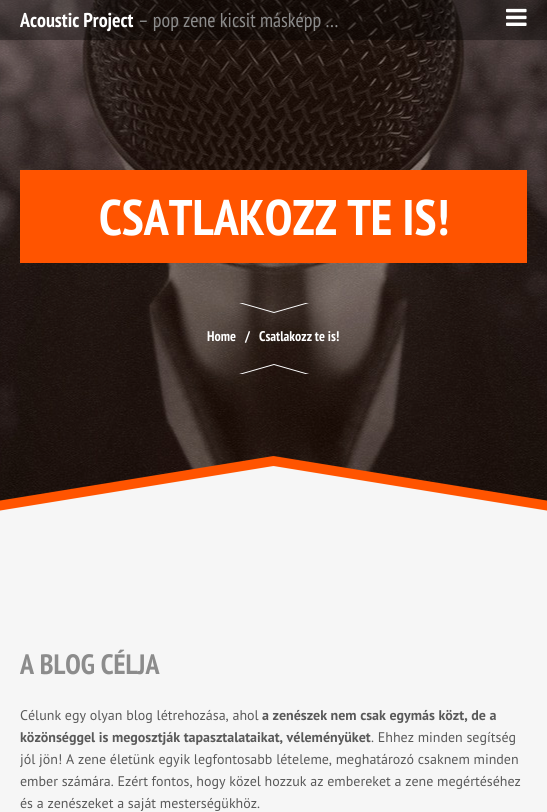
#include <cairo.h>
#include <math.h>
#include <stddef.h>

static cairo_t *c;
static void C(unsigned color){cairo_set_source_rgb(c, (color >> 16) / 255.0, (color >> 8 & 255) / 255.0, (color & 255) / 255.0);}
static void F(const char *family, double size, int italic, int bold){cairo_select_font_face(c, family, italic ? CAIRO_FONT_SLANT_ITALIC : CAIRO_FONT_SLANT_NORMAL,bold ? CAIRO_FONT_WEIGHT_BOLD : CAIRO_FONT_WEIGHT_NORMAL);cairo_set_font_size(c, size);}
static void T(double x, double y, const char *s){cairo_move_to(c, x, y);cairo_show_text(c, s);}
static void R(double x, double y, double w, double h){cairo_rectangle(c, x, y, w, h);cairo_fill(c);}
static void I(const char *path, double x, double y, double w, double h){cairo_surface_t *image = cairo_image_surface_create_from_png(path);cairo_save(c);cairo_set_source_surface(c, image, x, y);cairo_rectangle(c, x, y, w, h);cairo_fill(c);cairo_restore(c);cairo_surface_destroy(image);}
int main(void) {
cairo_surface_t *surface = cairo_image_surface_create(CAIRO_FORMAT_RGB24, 547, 812);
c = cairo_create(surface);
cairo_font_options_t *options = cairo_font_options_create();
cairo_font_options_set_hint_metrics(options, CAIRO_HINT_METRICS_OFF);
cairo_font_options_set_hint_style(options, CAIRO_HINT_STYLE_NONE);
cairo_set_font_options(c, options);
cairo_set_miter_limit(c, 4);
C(0xf6f6f6);
cairo_paint(c);
I("1.png",0,0,547,501);
cairo_set_source_rgba(c,0,0,0,0.35);
R(0,0,547,40);
F("PT Sans Narrow",20,0,1);
C(0xffffff);
T(20,27,"Acoustic Project");
F("PT Sans Narrow",20,0,0);
C(0x8c8c8c);
T(138,27,"– pop zene kicsit másképp …");
I("2.png",506,8,21,18);
C(0xff5400);
R(20,170,507,93);
F("PT Sans Narrow",50,0,1);
C(0xffffff);
T(99,235,"CSATLAKOZZ TE IS!");
I("3.png",239,303,70,71);
F("PT Sans Narrow",14,0,1);
T(207,341,"Home");
T(245,341,"/");
T(259,341,"Csatlakozz te is!");
I("4.png",0,456,547,168);
F("PT Sans Narrow",28,0,1);
C(0x8c8c8c);
T(20,674,"A BLOG CÉLJA");
F("PT Sans",14,0,0);
C(0x595959);
T(20,720,"Célunk egy olyan blog létrehozása, ahol");
F("PT Sans",14,0,1);
T(262,720,"a zenészek nem csak egymás közt, de a");
T(20,742,"közönséggel is megosztják tapasztalataikat, véleményüket");
F("PT Sans",14,0,0);
T(371,742,". Ehhez minden segítség");
T(20,764,"jól jön! A zene életünk egyik legfontosabb lételeme, meghatározó csaknem minden");
T(20,786,"ember számára. Ezért fontos, hogy közel hozzuk az embereket a zene megértéséhez");
T(20,808,"és a zenészeket a saját mesterségükhöz.");
cairo_surface_write_to_png(surface, "o.png");
cairo_font_options_destroy(options);
cairo_destroy(c);
cairo_surface_destroy(surface);
return 0;
}
